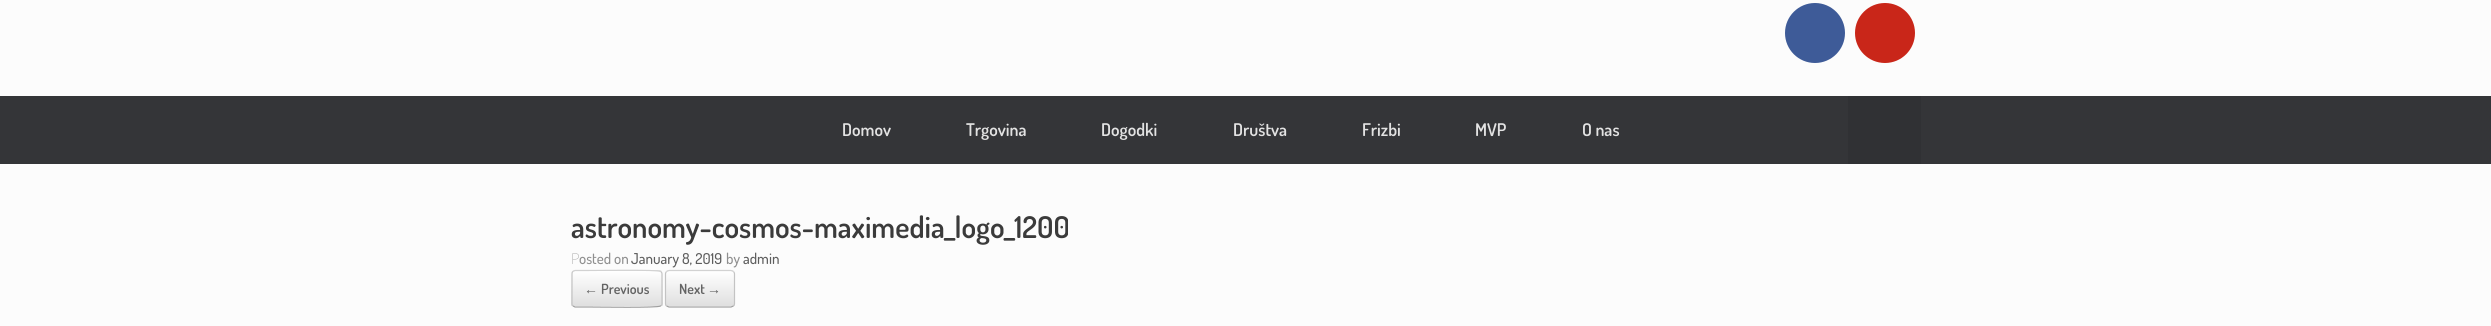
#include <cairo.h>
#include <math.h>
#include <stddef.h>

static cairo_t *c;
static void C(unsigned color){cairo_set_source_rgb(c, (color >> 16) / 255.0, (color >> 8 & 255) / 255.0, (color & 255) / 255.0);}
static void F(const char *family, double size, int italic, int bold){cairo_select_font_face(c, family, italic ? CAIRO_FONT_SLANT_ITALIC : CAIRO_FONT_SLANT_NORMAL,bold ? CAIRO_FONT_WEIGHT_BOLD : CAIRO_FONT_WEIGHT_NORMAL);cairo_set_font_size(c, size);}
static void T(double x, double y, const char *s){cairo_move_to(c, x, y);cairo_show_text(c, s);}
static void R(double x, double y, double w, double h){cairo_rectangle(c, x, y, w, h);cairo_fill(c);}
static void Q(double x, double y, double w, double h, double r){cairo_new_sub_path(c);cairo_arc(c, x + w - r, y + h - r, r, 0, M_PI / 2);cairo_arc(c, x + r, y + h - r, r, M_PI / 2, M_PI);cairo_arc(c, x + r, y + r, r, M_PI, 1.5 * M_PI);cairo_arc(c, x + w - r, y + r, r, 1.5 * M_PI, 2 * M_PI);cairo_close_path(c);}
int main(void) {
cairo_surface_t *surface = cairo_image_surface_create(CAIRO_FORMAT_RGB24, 2491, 326);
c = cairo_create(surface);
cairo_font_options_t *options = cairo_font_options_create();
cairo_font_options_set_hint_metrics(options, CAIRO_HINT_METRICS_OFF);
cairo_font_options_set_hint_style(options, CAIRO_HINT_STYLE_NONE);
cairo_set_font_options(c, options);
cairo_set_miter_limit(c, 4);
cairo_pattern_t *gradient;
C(0xfcfcfc);
cairo_paint(c);
C(0x3e5b98);
cairo_arc(c,1815,33,30,0,2 * M_PI);
cairo_fill(c);
C(0xc92619);
cairo_arc(c,1885,33,30,0,2 * M_PI);
cairo_fill(c);
C(0x343538);
R(0,96,2491,68);
F("Dosis SemiBold",17.5,0,0);
C(0xe2e2e2);
T(842,136,"Domov");
T(966,136,"Trgovina");
T(1101,136,"Dogodki");
T(1233,136,"Društva");
T(1362,136,"Frizbi");
T(1475,136,"MVP");
T(1582,136,"O nas");
C(0x303134);
R(1848,96,73,68);
F("Dosis SemiBold",30,0,0);
C(0x3b3b3b);
T(571,238,"astronomy-cosmos-maximedia_logo_1200");
F("Noto Sans Thin",15,0,0);
C(0x8f8f8f);
T(571,264,"P");
F("Dosis Medium",15,0,0);
T(579,264,"osted on");
C(0x5e5e5e);
T(631,264,"January 8, 2019");
C(0x8f8f8f);
T(726,264,"by");
C(0x5e5e5e);
T(743,264,"admin");
cairo_save(c);
Q(571,270,92,38,4);
cairo_clip(c);
gradient = cairo_pattern_create_linear(573,271,573,236);
cairo_pattern_add_color_stop_rgba(gradient,0,0.875,0.875,0.875,1);
cairo_pattern_add_color_stop_rgba(gradient,1,1,1,1,1);
cairo_set_source(c,gradient);
cairo_pattern_destroy(gradient);
R(571,270,92,1);
gradient = cairo_pattern_create_linear(573,306,573,271);
cairo_pattern_add_color_stop_rgba(gradient,0,0.875,0.875,0.875,1);
cairo_pattern_add_color_stop_rgba(gradient,1,1,1,1,1);
cairo_set_source(c,gradient);
cairo_pattern_destroy(gradient);
R(571,271,92,35);
gradient = cairo_pattern_create_linear(573,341,573,306);
cairo_pattern_add_color_stop_rgba(gradient,0,0.875,0.875,0.875,1);
cairo_pattern_add_color_stop_rgba(gradient,1,1,1,1,1);
cairo_set_source(c,gradient);
cairo_pattern_destroy(gradient);
R(571,306,92,2);
cairo_restore(c);
cairo_new_path(c);
cairo_move_to(c,573,271.5);
cairo_line_to(c,575,270.5);
cairo_line_to(c,589,270.5);
cairo_curve_to(c,597,270.5,658.5,269.5,660.5,271.5);
cairo_line_to(c,661,271.5);
C(0xd2d2d2);
cairo_set_line_width(c,1.2);
cairo_stroke(c);
cairo_new_path(c);
cairo_move_to(c,661,271.5);
cairo_curve_to(c,661.5,272,662,273,662,274);
cairo_line_to(c,662,304);
cairo_curve_to(c,662,304.5,661.5,305.5,661,306);
C(0xc3c3c3);
cairo_stroke(c);
cairo_new_path(c);
cairo_move_to(c,661,306);
cairo_line_to(c,660.5,306);
cairo_curve_to(c,658.5,308,597,307,589,307);
cairo_line_to(c,575,307);
cairo_line_to(c,573,306);
C(0x9f9f9f);
cairo_stroke(c);
cairo_new_path(c);
cairo_move_to(c,573,306);
cairo_curve_to(c,572,305.5,572,304.5,572,304);
cairo_line_to(c,572,274);
cairo_curve_to(c,572,273,572,272,573,271.5);
C(0xc3c3c3);
cairo_stroke(c);
F("Liberation Serif",14,0,1);
C(0x646464);
T(584,294,"←");
F("Dosis SemiBold",14,0,0);
T(601,294,"Previous");
cairo_save(c);
Q(665,270,70,38,4);
cairo_clip(c);
gradient = cairo_pattern_create_linear(666,271,666,236);
cairo_pattern_add_color_stop_rgba(gradient,0,0.875,0.875,0.875,1);
cairo_pattern_add_color_stop_rgba(gradient,1,1,1,1,1);
cairo_set_source(c,gradient);
cairo_pattern_destroy(gradient);
R(665,270,70,1);
gradient = cairo_pattern_create_linear(666,306,666,271);
cairo_pattern_add_color_stop_rgba(gradient,0,0.875,0.875,0.875,1);
cairo_pattern_add_color_stop_rgba(gradient,1,1,1,1,1);
cairo_set_source(c,gradient);
cairo_pattern_destroy(gradient);
R(665,271,70,35);
gradient = cairo_pattern_create_linear(666,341,666,306);
cairo_pattern_add_color_stop_rgba(gradient,0,0.875,0.875,0.875,1);
cairo_pattern_add_color_stop_rgba(gradient,1,1,1,1,1);
cairo_set_source(c,gradient);
cairo_pattern_destroy(gradient);
R(665,306,70,2);
cairo_restore(c);
cairo_new_path(c);
cairo_move_to(c,666.5,271.5);
cairo_line_to(c,669,270.5);
cairo_line_to(c,731,270.5);
cairo_line_to(c,733.5,271.5);
C(0xd2d2d2);
cairo_stroke(c);
cairo_new_path(c);
cairo_move_to(c,733.5,271.5);
cairo_curve_to(c,734,272,734.5,273,734.5,274);
cairo_line_to(c,734.5,304);
cairo_curve_to(c,734.5,304.5,734,305.5,733.5,306);
C(0xc3c3c3);
cairo_stroke(c);
cairo_new_path(c);
cairo_move_to(c,733.5,306);
cairo_line_to(c,731,307);
cairo_line_to(c,669,307);
cairo_line_to(c,666.5,306);
C(0x9f9f9f);
cairo_stroke(c);
cairo_new_path(c);
cairo_move_to(c,666.5,306);
cairo_curve_to(c,666,305.5,665.5,304.5,665.5,304);
cairo_line_to(c,665.5,274);
cairo_curve_to(c,665.5,273,666,272,666.5,271.5);
C(0xc3c3c3);
cairo_stroke(c);
C(0x646464);
T(679,294,"Next");
F("Liberation Serif",14,0,1);
T(707,294,"→");
cairo_surface_write_to_png(surface, "o.png");
cairo_font_options_destroy(options);
cairo_destroy(c);
cairo_surface_destroy(surface);
return 0;
}
